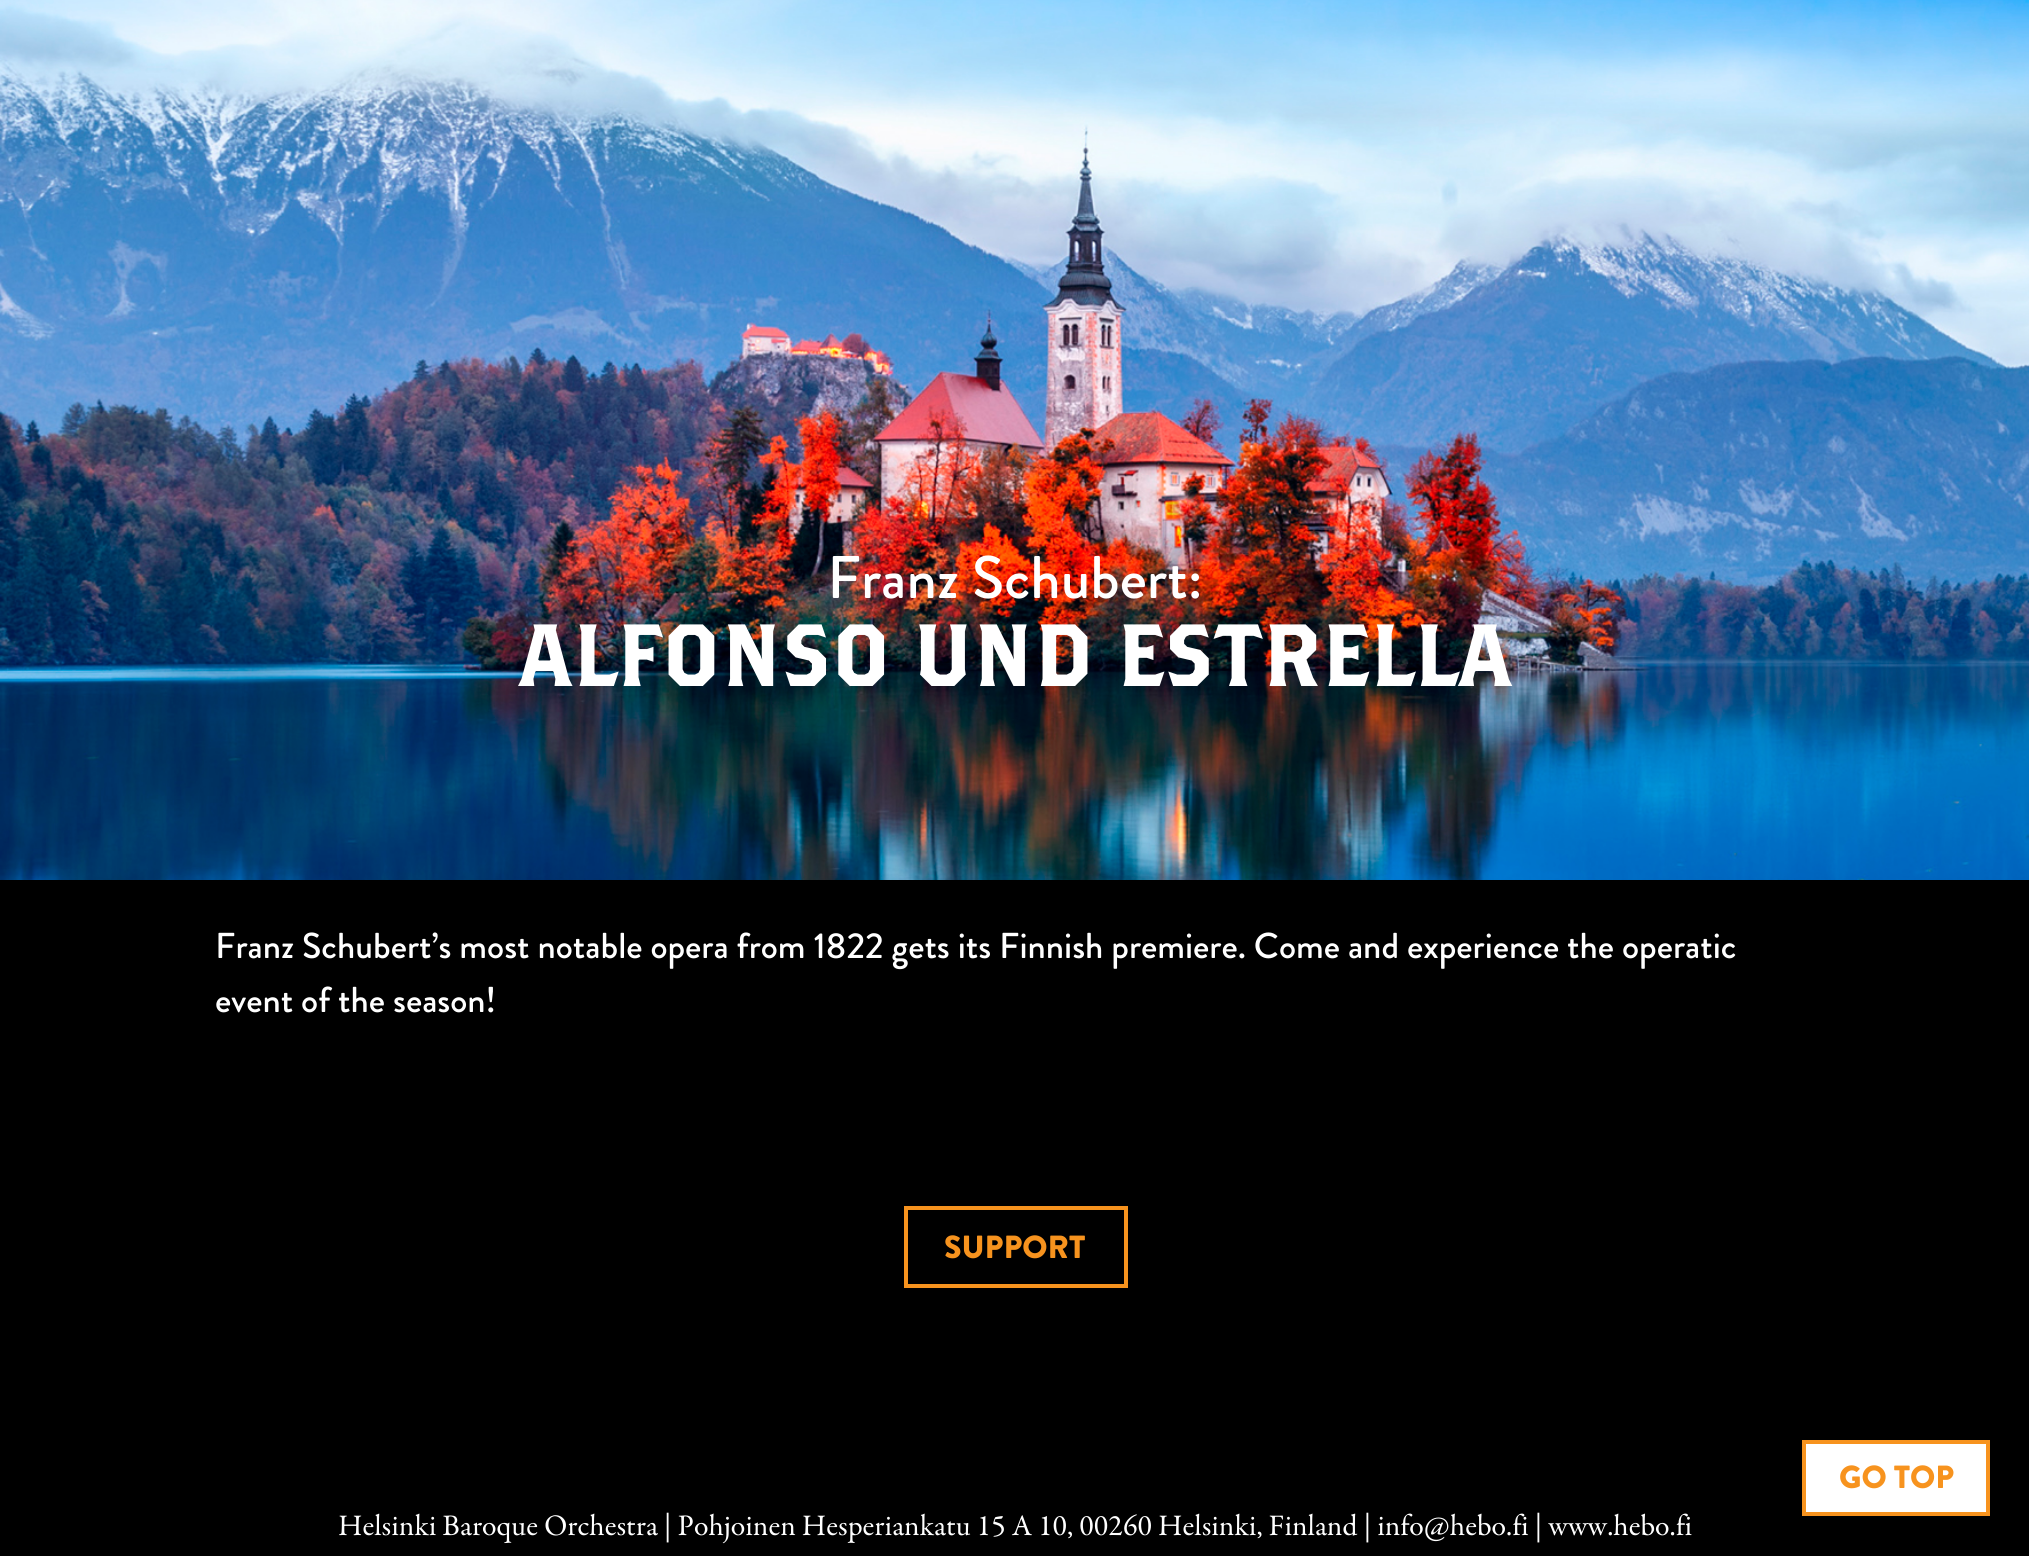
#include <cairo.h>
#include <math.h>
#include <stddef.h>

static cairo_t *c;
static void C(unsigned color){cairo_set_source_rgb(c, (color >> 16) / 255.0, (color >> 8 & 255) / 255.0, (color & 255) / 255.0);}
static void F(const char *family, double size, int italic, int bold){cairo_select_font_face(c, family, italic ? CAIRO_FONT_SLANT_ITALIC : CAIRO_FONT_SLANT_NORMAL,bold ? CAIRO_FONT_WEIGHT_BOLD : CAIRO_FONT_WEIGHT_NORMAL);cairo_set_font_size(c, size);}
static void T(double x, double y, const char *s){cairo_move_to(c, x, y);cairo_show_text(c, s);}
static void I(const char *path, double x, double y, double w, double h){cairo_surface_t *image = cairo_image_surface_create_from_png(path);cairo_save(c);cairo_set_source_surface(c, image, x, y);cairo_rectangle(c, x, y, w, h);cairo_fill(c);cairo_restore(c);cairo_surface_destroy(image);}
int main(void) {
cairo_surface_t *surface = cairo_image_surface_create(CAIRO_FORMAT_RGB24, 2029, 1556);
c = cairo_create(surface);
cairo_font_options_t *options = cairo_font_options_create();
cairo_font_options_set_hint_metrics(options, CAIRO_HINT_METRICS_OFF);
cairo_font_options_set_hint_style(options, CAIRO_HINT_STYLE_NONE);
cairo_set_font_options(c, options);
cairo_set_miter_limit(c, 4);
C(0x000000);
cairo_paint(c);
I("1.png",0,0,2029,880);
F("Brandon Grotesque Medium",60,0,0);
C(0xffffff);
T(827,598,"Franz Schubert:");
F("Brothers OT",88,0,0);
T(518,686,"ALFONSO UND ESTRELLA");
F("Brandon Grotesque Medium",36,0,0);
T(215,958,"Franz Schubert’s most notable opera from 1822 gets its Finnish premiere. Come and experience the operatic");
T(215,1012,"event of the season!");
cairo_rectangle(c,906,1208,220,78);
C(0xf7931e);
cairo_set_line_width(c,4);
cairo_stroke(c);
F("Brandon Grotesque Black",32,0,0);
T(944,1258,"SUPPORT");
C(0xffffff);
cairo_rectangle(c,1804,1442,184,72);
cairo_fill_preserve(c);
C(0xf7931e);
cairo_stroke(c);
T(1839,1488,"GO TOP");
F("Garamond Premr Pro",30,0,0);
C(0xffffff);
T(338,1535,"Helsinki Baroque Orchestra | Pohjoinen Hesperiankatu 15 A 10, 00260 Helsinki, Finland | info@hebo.fi | www.hebo.fi");
cairo_surface_write_to_png(surface, "o.png");
cairo_font_options_destroy(options);
cairo_destroy(c);
cairo_surface_destroy(surface);
return 0;
}
